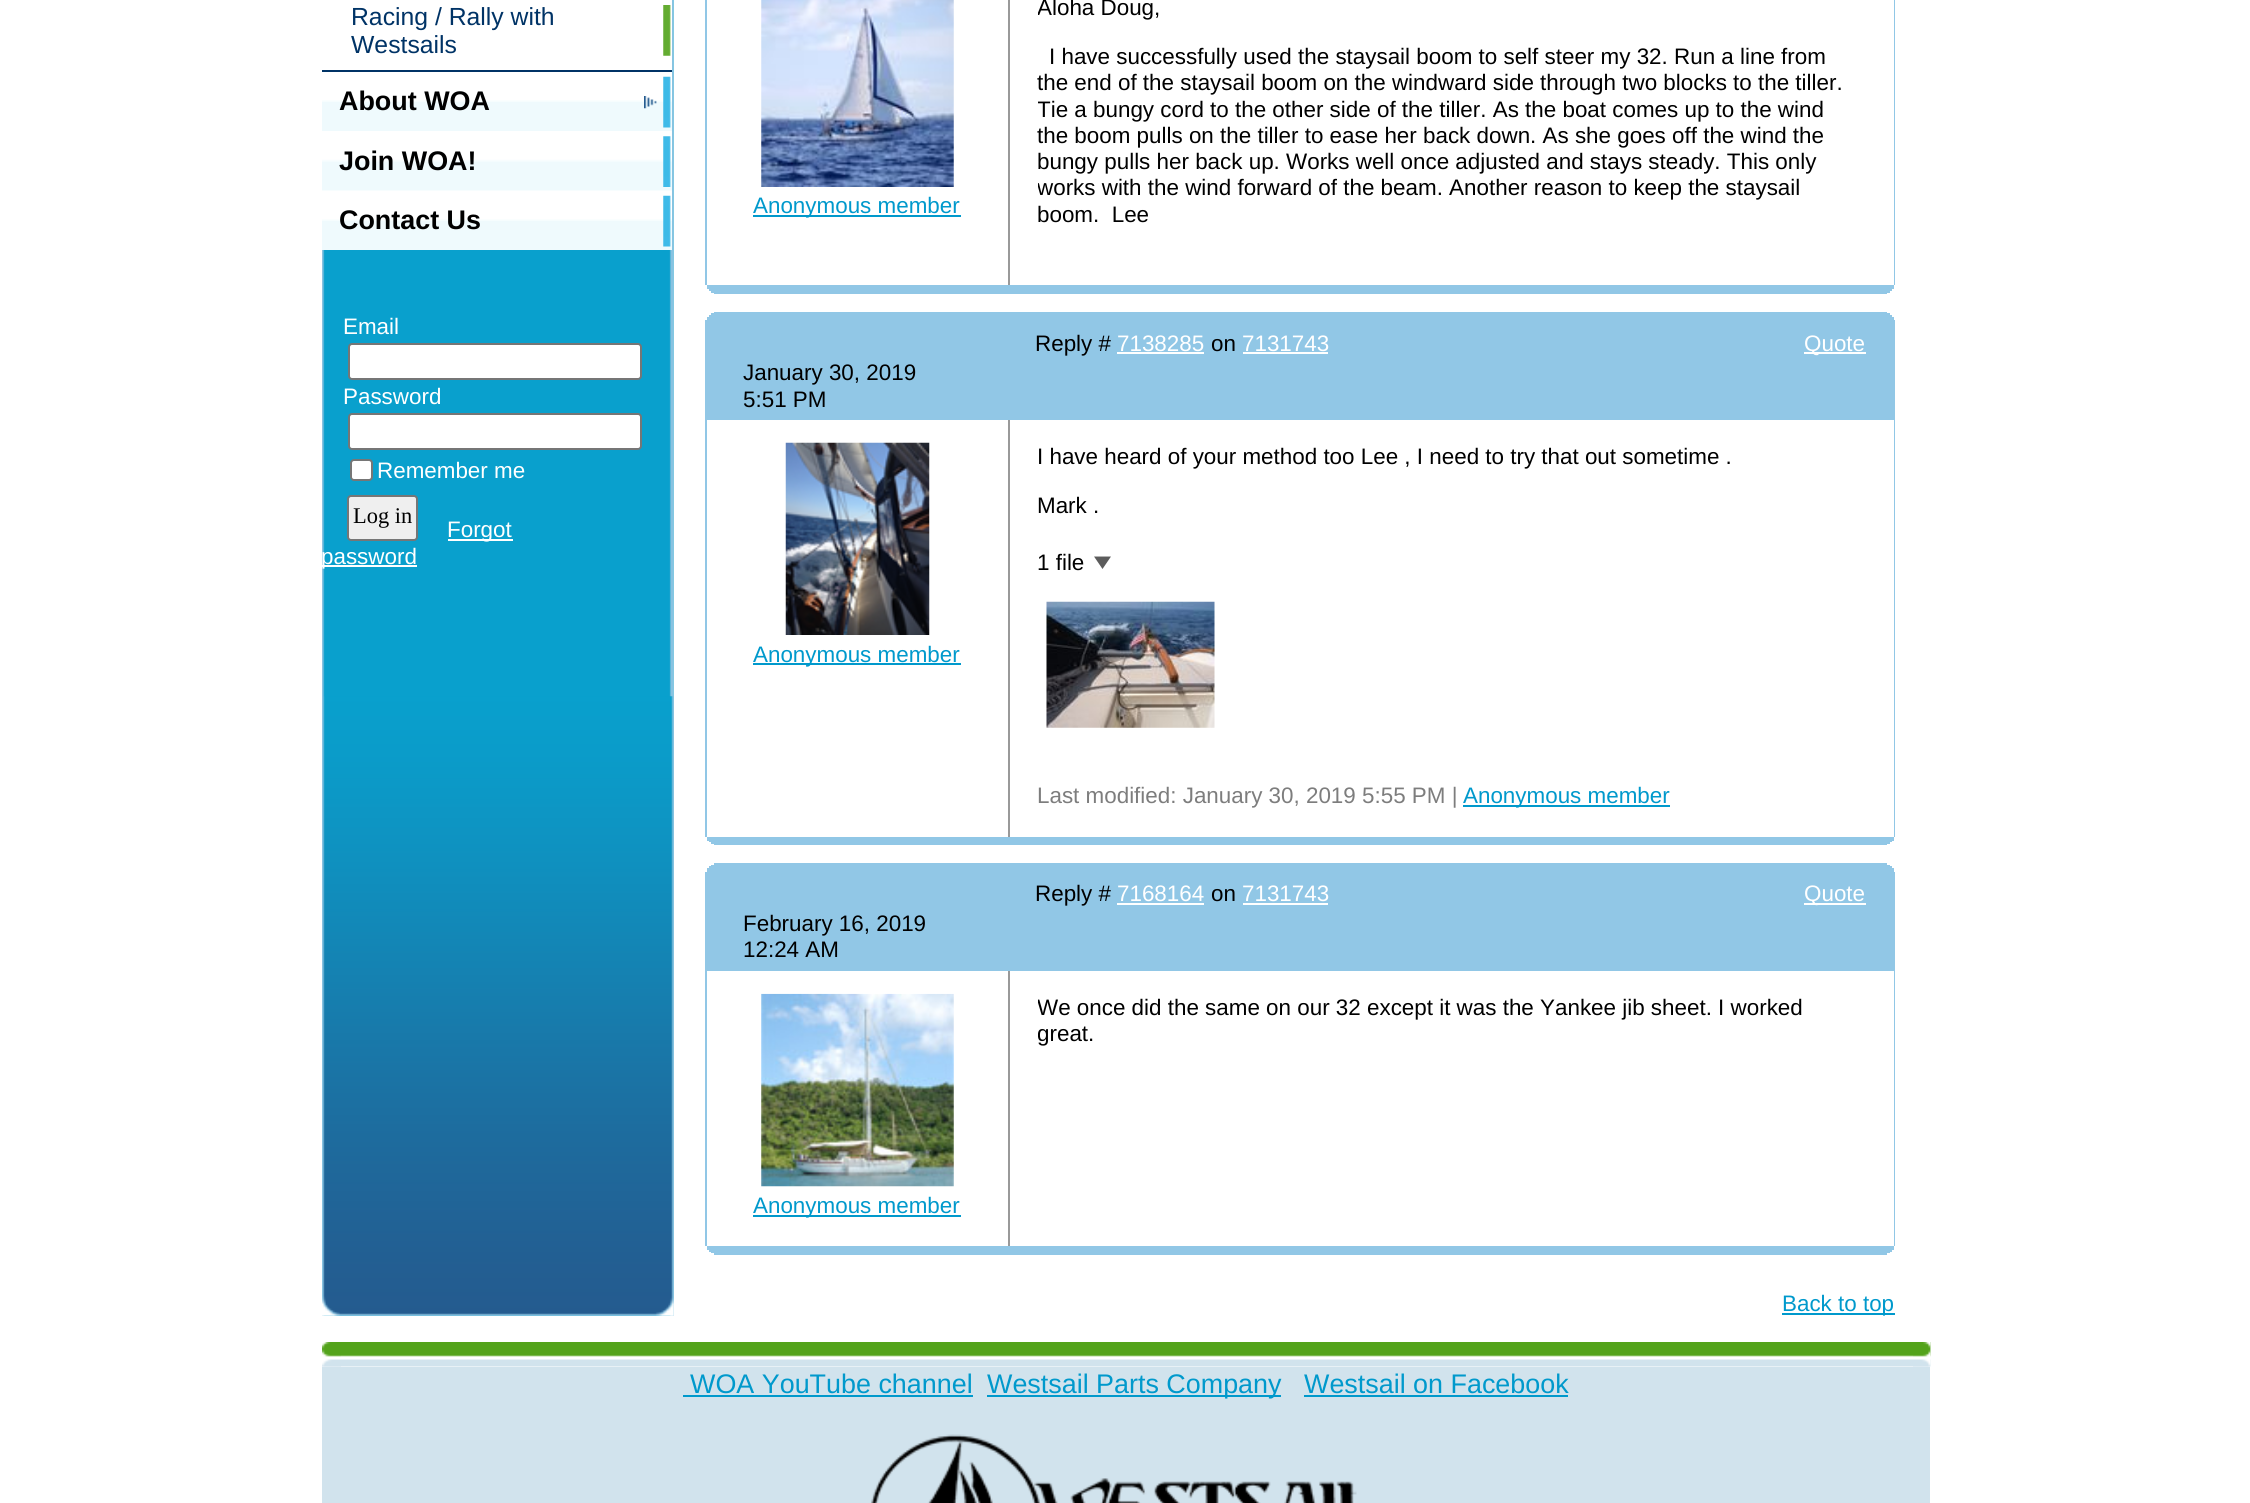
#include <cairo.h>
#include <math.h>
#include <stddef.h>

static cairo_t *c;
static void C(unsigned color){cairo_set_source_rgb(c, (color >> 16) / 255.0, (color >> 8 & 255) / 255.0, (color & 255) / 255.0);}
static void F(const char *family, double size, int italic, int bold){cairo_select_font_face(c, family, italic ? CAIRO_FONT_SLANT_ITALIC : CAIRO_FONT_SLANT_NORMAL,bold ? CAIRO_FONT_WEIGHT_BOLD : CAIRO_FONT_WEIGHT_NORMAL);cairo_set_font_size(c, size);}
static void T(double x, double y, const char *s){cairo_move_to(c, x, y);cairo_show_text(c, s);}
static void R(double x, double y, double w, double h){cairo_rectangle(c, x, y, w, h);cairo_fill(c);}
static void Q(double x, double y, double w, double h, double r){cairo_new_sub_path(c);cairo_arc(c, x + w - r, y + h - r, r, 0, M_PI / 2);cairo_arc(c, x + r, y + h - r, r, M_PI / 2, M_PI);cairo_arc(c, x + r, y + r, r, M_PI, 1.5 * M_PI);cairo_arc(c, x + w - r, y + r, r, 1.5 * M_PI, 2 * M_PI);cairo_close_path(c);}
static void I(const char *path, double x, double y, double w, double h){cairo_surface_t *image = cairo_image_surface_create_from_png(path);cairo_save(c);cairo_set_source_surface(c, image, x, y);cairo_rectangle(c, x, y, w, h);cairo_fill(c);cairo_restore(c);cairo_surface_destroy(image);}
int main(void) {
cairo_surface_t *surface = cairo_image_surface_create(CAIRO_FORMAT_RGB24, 2250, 1503);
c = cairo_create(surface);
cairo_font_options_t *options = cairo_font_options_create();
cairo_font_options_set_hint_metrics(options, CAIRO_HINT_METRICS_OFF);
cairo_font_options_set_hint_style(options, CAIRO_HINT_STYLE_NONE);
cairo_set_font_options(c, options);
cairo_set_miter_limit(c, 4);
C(0xffffff);
cairo_paint(c);
I("1.png",322,0,352,1316);
I("2.png",322,696,352,620);
C(0xffffff);
R(322,0,350,70);
C(0x003366);
R(322,70,350,2);
I("3.png",663,5,8,51);
F("Liberation Sans",24.75,0,0);
T(351,25,"Racing / Rally with");
T(351,53,"Westsails");
C(0xeffafd);
R(322,102,350,29);
I("4.png",322,72,350,30);
I("5.png",663,76,8,52);
I("6.png",644,96,13,13);
F("Liberation Sans",26.9,0,1);
C(0x000000);
T(339,110,"About WOA");
C(0xeffafd);
R(322,162,350,29);
I("7.png",322,131,350,31);
I("8.png",663,136,8,51);
C(0x000000);
T(339,170,"Join WOA!");
C(0xeffafd);
R(322,221,350,29);
I("9.png",322,190,350,31);
I("5.png",663,195,8,52);
C(0x000000);
T(339,229,"Contact Us");
F("Liberation Sans",22.4,0,0);
C(0xffffff);
T(343,334,"Email");
Q(349,344,292,35,3);
cairo_fill_preserve(c);
C(0x767676);
cairo_stroke(c);
C(0xffffff);
T(343,404,"Password");
Q(349,414,292,35,3);
cairo_fill_preserve(c);
C(0x767676);
cairo_stroke(c);
C(0xffffff);
Q(351,460,21,20,3);
cairo_fill_preserve(c);
C(0x767676);
cairo_stroke(c);
C(0xffffff);
T(377,478,"Remember me");
C(0xefefef);
Q(348,496,69,44,3);
cairo_fill_preserve(c);
C(0x767676);
cairo_stroke(c);
F("Liberation Serif",22.4,0,0);
C(0x000000);
T(353,523,"Log in");
C(0xffffff);
R(448,539,65,2);
F("Liberation Sans",22.4,0,0);
T(447,537,"Forgot");
R(322,565,95,2);
T(321,564,"password");
C(0x91c7e6);
R(1894,0,1,285);
R(705,0,2,285);
C(0x999999);
R(1008,0,2,285);
I("10.png",761,0,193,187);
C(0x0099cc);
R(753,215,208,2);
T(753,213,"Anonymous member");
cairo_save(c);
cairo_rectangle(c,1038,0,822,257);
cairo_clip(c);
C(0x000000);
T(1037,15,"Aloha Doug,");
cairo_restore(c);
C(0x000000);
T(1049,64,"I have successfully used the staysail boom to self steer my 32. Run a line from");
T(1037,90,"the end of the staysail boom on the windward side through two blocks to the tiller.");
cairo_save(c);
cairo_rectangle(c,1038,0,822,257);
cairo_clip(c);
T(1037,117,"Tie a bungy cord to the other side of the tiller. As the boat comes up to the wind");
cairo_restore(c);
T(1037,143,"the boom pulls on the tiller to ease her back down. As she goes off the wind the");
T(1037,169,"bungy pulls her back up. Works well once adjusted and stays steady. This only");
cairo_save(c);
cairo_rectangle(c,1038,0,822,257);
cairo_clip(c);
T(1037,195,"works with the wind forward of the beam. Another reason to keep the staysail");
cairo_restore(c);
T(1037,222,"boom.  Lee");
C(0x91c7e6);
R(707,285,1187,4);
R(709,289,1183,2);
R(711,291,1179,2);
R(714,293,1173,1);
R(714,312,1173,1);
R(711,313,1179,2);
R(709,315,1183,2);
R(707,317,1187,3);
R(705,320,1190,100);
C(0x000000);
T(1035,351,"Reply #");
C(0xffffff);
T(1117,351,"7138285");
R(1117,352,87,2);
C(0x000000);
T(1211,351,"on");
C(0xffffff);
T(1242,351,"7131743");
R(1243,352,85,2);
R(1804,352,62,2);
T(1804,351,"Quote");
C(0x000000);
T(743,380,"January 30, 2019");
T(743,407,"5:51 PM");
C(0x91c7e6);
R(1894,420,1,417);
R(705,420,2,417);
C(0x999999);
R(1008,420,2,417);
I("11.png",785,442,145,193);
C(0x0099cc);
R(753,663,208,2);
T(753,662,"Anonymous member");
C(0x000000);
T(1037,464,"I have heard of your method too Lee , I need to try that out sometime .");
T(1037,513,"Mark .");
T(1037,570,"1 file");
C(0x5c5c5c);
cairo_new_path(c);
cairo_move_to(c,1094,556.5);
cairo_line_to(c,1111,556.5);
cairo_line_to(c,1102.5,569);
cairo_close_path(c);
cairo_fill(c);
I("12.png",1046,601,169,127);
C(0x7d7d7d);
T(1037,803,"Last modified: January 30, 2019 5:55 PM |");
C(0x0099cc);
R(1463,805,207,2);
T(1463,803,"Anonymous member");
C(0x91c7e6);
R(707,837,1187,4);
R(709,841,1183,1);
R(711,842,1179,2);
R(714,844,1173,1);
R(714,863,1173,2);
R(711,865,1179,1);
R(709,866,1183,2);
R(707,868,1187,4);
R(705,872,1190,99);
C(0x000000);
T(1035,901,"Reply #");
C(0xffffff);
T(1117,901,"7168164");
R(1117,903,87,2);
C(0x000000);
T(1211,901,"on");
C(0xffffff);
T(1242,901,"7131743");
R(1243,903,85,2);
R(1804,903,62,2);
T(1804,901,"Quote");
C(0x000000);
T(743,931,"February 16, 2019");
T(743,957,"12:24 AM");
C(0x91c7e6);
R(1894,971,1,275);
R(705,971,2,275);
cairo_save(c);
cairo_rectangle(c,1038,994,822,84);
cairo_clip(c);
C(0x000000);
T(1037,1015,"We once did the same on our 32 except it was the Yankee jib sheet. I worked");
T(1037,1041,"great.");
cairo_restore(c);
C(0x999999);
R(1008,971,2,275);
I("13.png",761,993,193,194);
C(0x0099cc);
R(753,1215,208,2);
T(753,1213,"Anonymous member");
C(0x91c7e6);
R(707,1246,1187,4);
R(709,1250,1183,2);
R(711,1252,1179,1);
R(714,1253,1173,2);
C(0x0099cc);
R(1782,1313,113,2);
T(1782,1311,"Back to top");
I("14.png",322,1342,1609,25);
I("15.png",322,1342,19,25);
I("16.png",1913,1342,18,25);
C(0xd1e3ed);
R(322,1367,1608,136);
F("Liberation Sans",26.9,0,0);
C(0x0099cc);
T(690,1393,"WOA YouTube channel");
R(683,1395,290,2);
R(987,1395,294,2);
T(987,1393,"Westsail Parts Company");
T(1304,1393,"Westsail on Facebook");
R(1304,1395,264,2);
I("17.png",871,1434,486,69);
cairo_surface_write_to_png(surface, "o.png");
cairo_font_options_destroy(options);
cairo_destroy(c);
cairo_surface_destroy(surface);
return 0;
}
